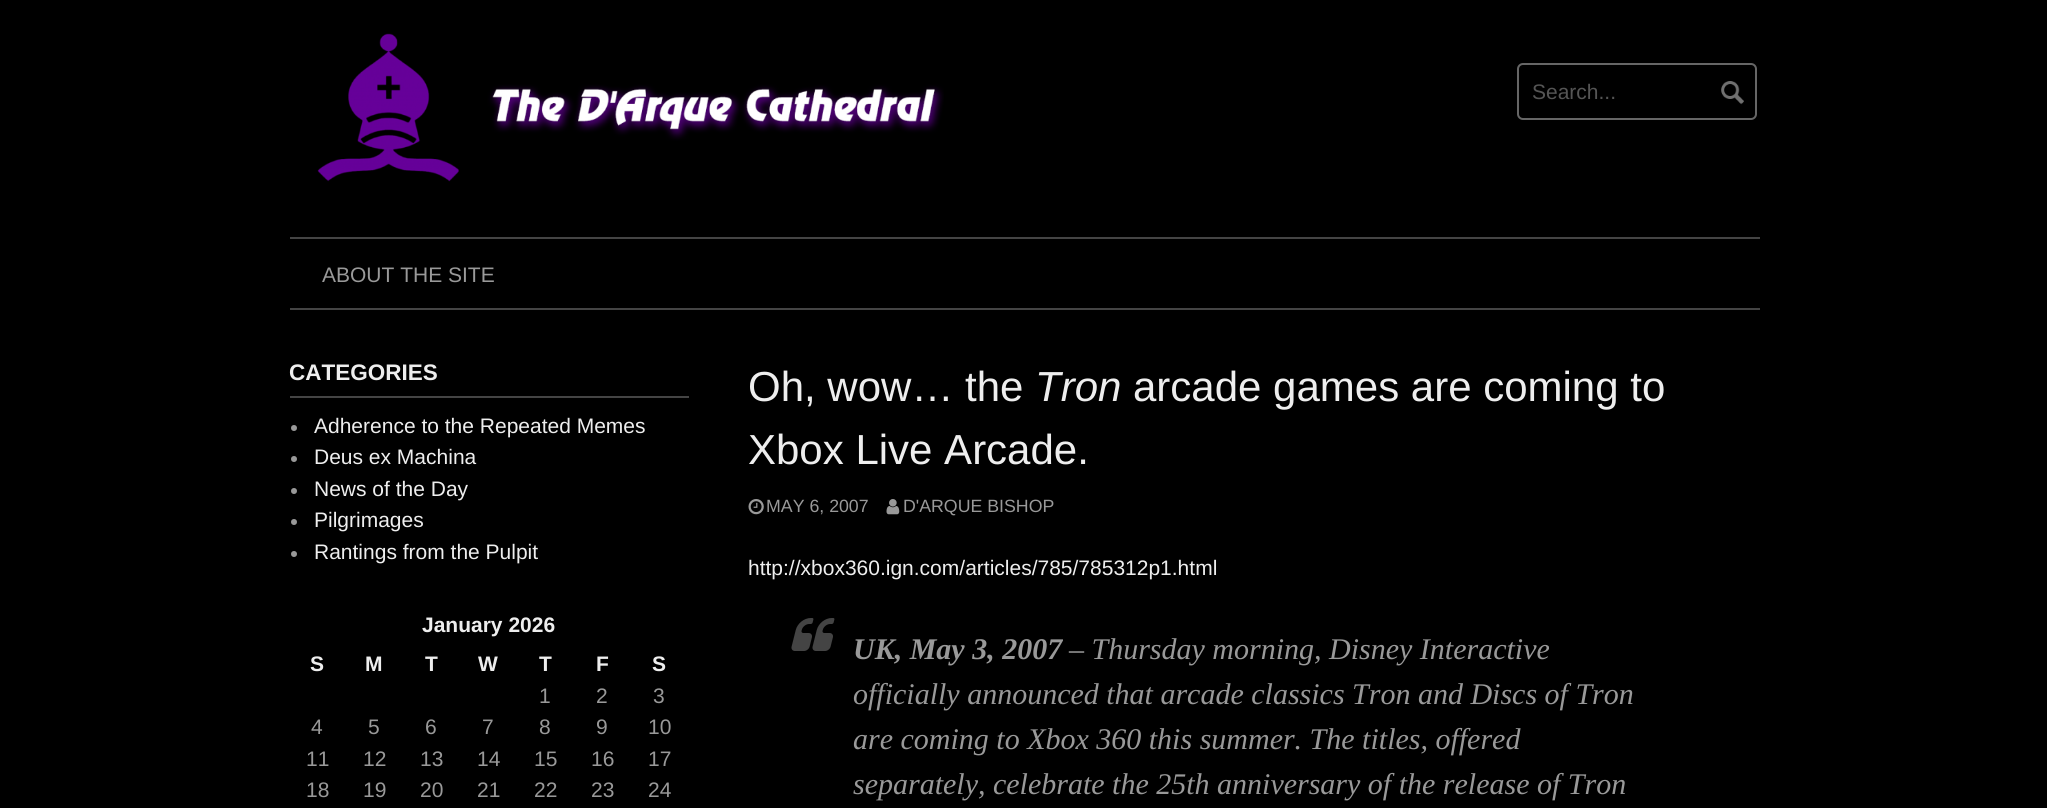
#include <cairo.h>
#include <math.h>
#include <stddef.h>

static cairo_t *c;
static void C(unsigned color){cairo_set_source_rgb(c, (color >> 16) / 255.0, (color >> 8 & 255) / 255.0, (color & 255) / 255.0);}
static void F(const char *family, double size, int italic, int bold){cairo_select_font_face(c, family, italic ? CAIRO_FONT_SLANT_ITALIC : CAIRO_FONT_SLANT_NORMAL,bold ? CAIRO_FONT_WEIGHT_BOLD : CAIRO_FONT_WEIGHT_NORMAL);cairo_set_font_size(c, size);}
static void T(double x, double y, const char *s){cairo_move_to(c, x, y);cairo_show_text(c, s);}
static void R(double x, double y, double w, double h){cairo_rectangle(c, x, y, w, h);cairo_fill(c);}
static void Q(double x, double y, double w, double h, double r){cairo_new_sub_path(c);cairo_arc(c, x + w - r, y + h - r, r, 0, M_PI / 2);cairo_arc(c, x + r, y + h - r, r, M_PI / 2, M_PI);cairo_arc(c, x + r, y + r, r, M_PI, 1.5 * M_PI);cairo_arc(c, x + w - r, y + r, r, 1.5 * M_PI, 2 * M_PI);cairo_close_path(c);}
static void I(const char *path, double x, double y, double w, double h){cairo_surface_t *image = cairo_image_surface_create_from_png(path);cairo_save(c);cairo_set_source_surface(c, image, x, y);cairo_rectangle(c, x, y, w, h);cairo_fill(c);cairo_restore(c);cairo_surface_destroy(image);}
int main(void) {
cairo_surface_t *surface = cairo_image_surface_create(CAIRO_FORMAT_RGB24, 2047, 808);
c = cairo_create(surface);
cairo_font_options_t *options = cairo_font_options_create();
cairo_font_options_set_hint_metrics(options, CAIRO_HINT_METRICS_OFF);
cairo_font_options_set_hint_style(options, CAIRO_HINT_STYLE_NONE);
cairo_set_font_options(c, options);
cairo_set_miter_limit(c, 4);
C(0x000000);
cairo_paint(c);
I("1.png",317,33,627,149);
Q(1518,64,238,55,5);
C(0x666666);
cairo_stroke(c);
F("Liberation Sans",21,0,0);
C(0x555555);
T(1532,99,"Search...");
I("2.png",1721,81,23,24);
C(0x444444);
R(290,237,1470,2);
R(290,308,1470,2);
C(0x999999);
T(322,282,"ABOUT THE SITE");
C(0x444444);
R(290,396,399,2);
F("Liberation Sans",22.5,0,1);
C(0xeeeeee);
T(289,380,"CATEGORIES");
C(0x999999);
cairo_new_path(c);
cairo_arc(c,294,428,3,0,2 * M_PI);
cairo_fill(c);
F("Liberation Sans",21,0,0);
C(0xeeeeee);
T(314,433,"Adherence to the Repeated Memes");
C(0x999999);
cairo_new_path(c);
cairo_arc(c,294,459,3,0,2 * M_PI);
cairo_fill(c);
C(0xeeeeee);
T(314,464,"Deus ex Machina");
C(0x999999);
cairo_new_path(c);
cairo_arc(c,294,491,3,0,2 * M_PI);
cairo_fill(c);
C(0xeeeeee);
T(314,496,"News of the Day");
C(0x999999);
cairo_new_path(c);
cairo_arc(c,294,522,3,0,2 * M_PI);
cairo_fill(c);
C(0xeeeeee);
T(314,527,"Pilgrimages");
C(0x999999);
cairo_new_path(c);
cairo_arc(c,294,554,3,0,2 * M_PI);
cairo_fill(c);
C(0xeeeeee);
T(314,559,"Rantings from the Pulpit");
F("Liberation Sans",21,0,1);
T(422,632,"January 2026");
T(310,671,"S");
T(365,671,"M");
T(425,671,"T");
T(478,671,"W");
T(539,671,"T");
T(596,671,"F");
T(652,671,"S");
F("Liberation Sans",21,0,0);
C(0x999999);
T(539,703,"1");
T(596,703,"2");
T(653,703,"3");
T(311,734,"4");
T(368,734,"5");
T(425,734,"6");
T(482,734,"7");
T(539,734,"8");
T(596,734,"9");
T(648,734,"10");
T(306,766,"11");
T(363,766,"12");
T(420,766,"13");
T(477,766,"14");
T(534,766,"15");
T(591,766,"16");
T(648,766,"17");
T(306,797,"18");
T(363,797,"19");
T(420,797,"20");
T(477,797,"21");
T(534,797,"22");
T(591,797,"23");
T(648,797,"24");
F("Liberation Sans",42,0,0);
C(0xeeeeee);
T(748,401,"Oh, wow… the");
F("Liberation Sans",42,1,0);
T(1035,401,"Tron");
F("Liberation Sans",42,0,0);
T(1133,401,"arcade games are coming to");
T(748,464,"Xbox Live Arcade.");
I("3.png",748,499,16,16);
F("Liberation Sans",17.75,0,0);
C(0x999999);
T(766,512,"MAY 6, 2007");
I("4.png",886,499,14,16);
T(903,512,"D'ARQUE BISHOP");
F("Liberation Sans",21,0,0);
C(0xeeeeee);
T(748,575,"http://xbox360.ign.com/articles/785/785312p1.html");
I("5.png",791,618,44,33);
F("Liberation Serif",30,1,1);
C(0x999999);
T(853,659,"UK, May 3, 2007");
F("Liberation Serif",30,1,0);
T(1069,659,"– Thursday morning, Disney Interactive");
T(853,704,"officially announced that arcade classics Tron and Discs of Tron");
T(853,749,"are coming to Xbox 360 this summer. The titles, offered");
T(853,794,"separately, celebrate the 25th anniversary of the release of Tron");
cairo_surface_write_to_png(surface, "o.png");
cairo_font_options_destroy(options);
cairo_destroy(c);
cairo_surface_destroy(surface);
return 0;
}
